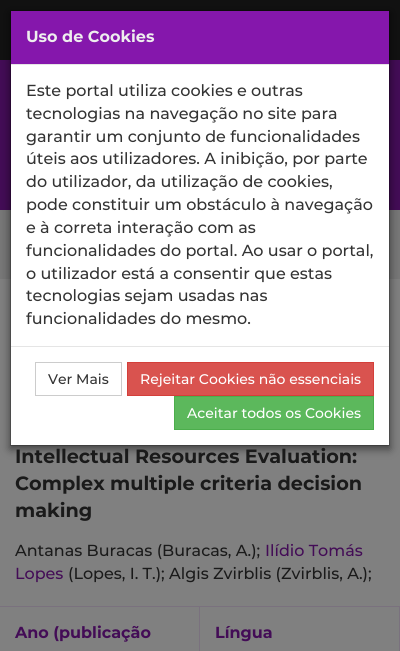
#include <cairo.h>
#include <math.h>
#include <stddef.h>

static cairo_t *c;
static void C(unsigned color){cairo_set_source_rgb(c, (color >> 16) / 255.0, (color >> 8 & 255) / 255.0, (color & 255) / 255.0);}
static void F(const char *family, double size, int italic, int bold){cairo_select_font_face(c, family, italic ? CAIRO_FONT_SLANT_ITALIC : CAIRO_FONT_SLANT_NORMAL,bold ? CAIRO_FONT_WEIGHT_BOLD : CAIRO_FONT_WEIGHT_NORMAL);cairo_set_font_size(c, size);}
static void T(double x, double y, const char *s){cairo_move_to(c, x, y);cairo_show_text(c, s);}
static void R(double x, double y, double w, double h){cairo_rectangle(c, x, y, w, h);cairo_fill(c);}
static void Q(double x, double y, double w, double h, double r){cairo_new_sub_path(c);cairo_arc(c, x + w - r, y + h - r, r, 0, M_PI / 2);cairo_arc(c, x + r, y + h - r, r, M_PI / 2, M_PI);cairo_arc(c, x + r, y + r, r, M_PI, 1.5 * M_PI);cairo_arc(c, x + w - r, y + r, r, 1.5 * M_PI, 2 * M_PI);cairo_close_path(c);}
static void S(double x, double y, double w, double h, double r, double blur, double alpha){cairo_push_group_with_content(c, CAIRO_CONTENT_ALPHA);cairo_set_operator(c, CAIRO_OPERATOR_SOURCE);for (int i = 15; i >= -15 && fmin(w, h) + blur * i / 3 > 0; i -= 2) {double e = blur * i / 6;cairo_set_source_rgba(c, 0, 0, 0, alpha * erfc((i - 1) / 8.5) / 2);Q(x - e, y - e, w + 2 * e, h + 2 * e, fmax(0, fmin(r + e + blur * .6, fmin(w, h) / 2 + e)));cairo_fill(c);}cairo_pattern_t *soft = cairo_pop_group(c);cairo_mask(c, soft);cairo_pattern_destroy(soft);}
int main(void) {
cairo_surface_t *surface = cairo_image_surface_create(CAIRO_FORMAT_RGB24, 400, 651);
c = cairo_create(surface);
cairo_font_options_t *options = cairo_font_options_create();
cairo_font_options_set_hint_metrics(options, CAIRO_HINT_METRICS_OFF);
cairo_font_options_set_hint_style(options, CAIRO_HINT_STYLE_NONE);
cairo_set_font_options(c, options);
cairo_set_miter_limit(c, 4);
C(0x808080);
cairo_paint(c);
C(0x111111);
R(0,0,400,60);
C(0x430c56);
R(0,60,400,150);
C(0x777777);
R(0,210,400,69);
C(0x000000);
S(10,13,380,436,0,4.5,.5);
C(0xffffff);
R(11,65,378,380);
cairo_rectangle(c,10.5,10.5,379,435);
cairo_set_source_rgba(c,0,0,0,0.2);
cairo_set_line_width(c,1);
cairo_stroke(c);
C(0x8517ac);
R(11,11,378,53);
C(0xe5e5e5);
R(11,64,378,1);
F("Montserrat",16,0,1);
C(0xeeeeee);
T(26,42,"Uso de Cookies");
F("Montserrat Medium",16,0,0);
C(0x333333);
T(26,96,"Este portal utiliza cookies e outras");
T(26,119,"tecnologias na navegação no site para");
T(26,142,"garantir um conjunto de funcionalidades");
T(26,164,"úteis aos utilizadores. A inibição, por parte");
T(26,187,"do utilizador, da utilização de cookies,");
T(26,210,"pode constituir um obstáculo à navegação");
T(26,233,"e à correta interação com as");
T(26,256,"funcionalidades do portal. Ao usar o portal,");
T(26,279,"o utilizador está a consentir que estas");
T(26,301,"tecnologias sejam usadas nas");
T(26,324,"funcionalidades do mesmo.");
C(0xe5e5e5);
R(11,346,378,1);
cairo_rectangle(c,35.5,362.5,86,33);
C(0xcccccc);
cairo_stroke(c);
F("Montserrat Medium",14,0,0);
C(0x333333);
T(48,384,"Ver Mais");
C(0xd9534f);
cairo_rectangle(c,127.5,362.5,246,33);
cairo_fill_preserve(c);
C(0xd43f3a);
cairo_stroke(c);
C(0xffffff);
T(140,384,"Rejeitar Cookies não essenciais");
C(0x5cb85c);
cairo_rectangle(c,174.5,396.5,199,33);
cairo_fill_preserve(c);
C(0x4cae4c);
cairo_stroke(c);
C(0xffffff);
T(187,418,"Aceitar todos os Cookies");
F("Montserrat",19.25,0,1);
C(0x1a1a1a);
T(15,463,"Intellectual Resources Evaluation:");
T(15,490,"Complex multiple criteria decision");
T(15,517,"making");
F("Montserrat Medium",16,0,0);
T(15,556,"Antanas Buracas (Buracas, A.);");
C(0x430c56);
T(265,556,"Ilídio Tomás");
T(15,579,"Lopes");
C(0x1a1a1a);
T(68,579,"(Lopes, I. T.); Algis Zvirblis (Zvirblis, A.);");
C(0x7a717e);
R(0,606,400,1);
R(199,606,1,45);
F("Montserrat",16,0,1);
C(0x430c56);
T(15,638,"Ano (publicação");
C(0x7a717e);
R(399,606,1,45);
C(0x430c56);
T(215,638,"Língua");
cairo_surface_write_to_png(surface, "o.png");
cairo_font_options_destroy(options);
cairo_destroy(c);
cairo_surface_destroy(surface);
return 0;
}
